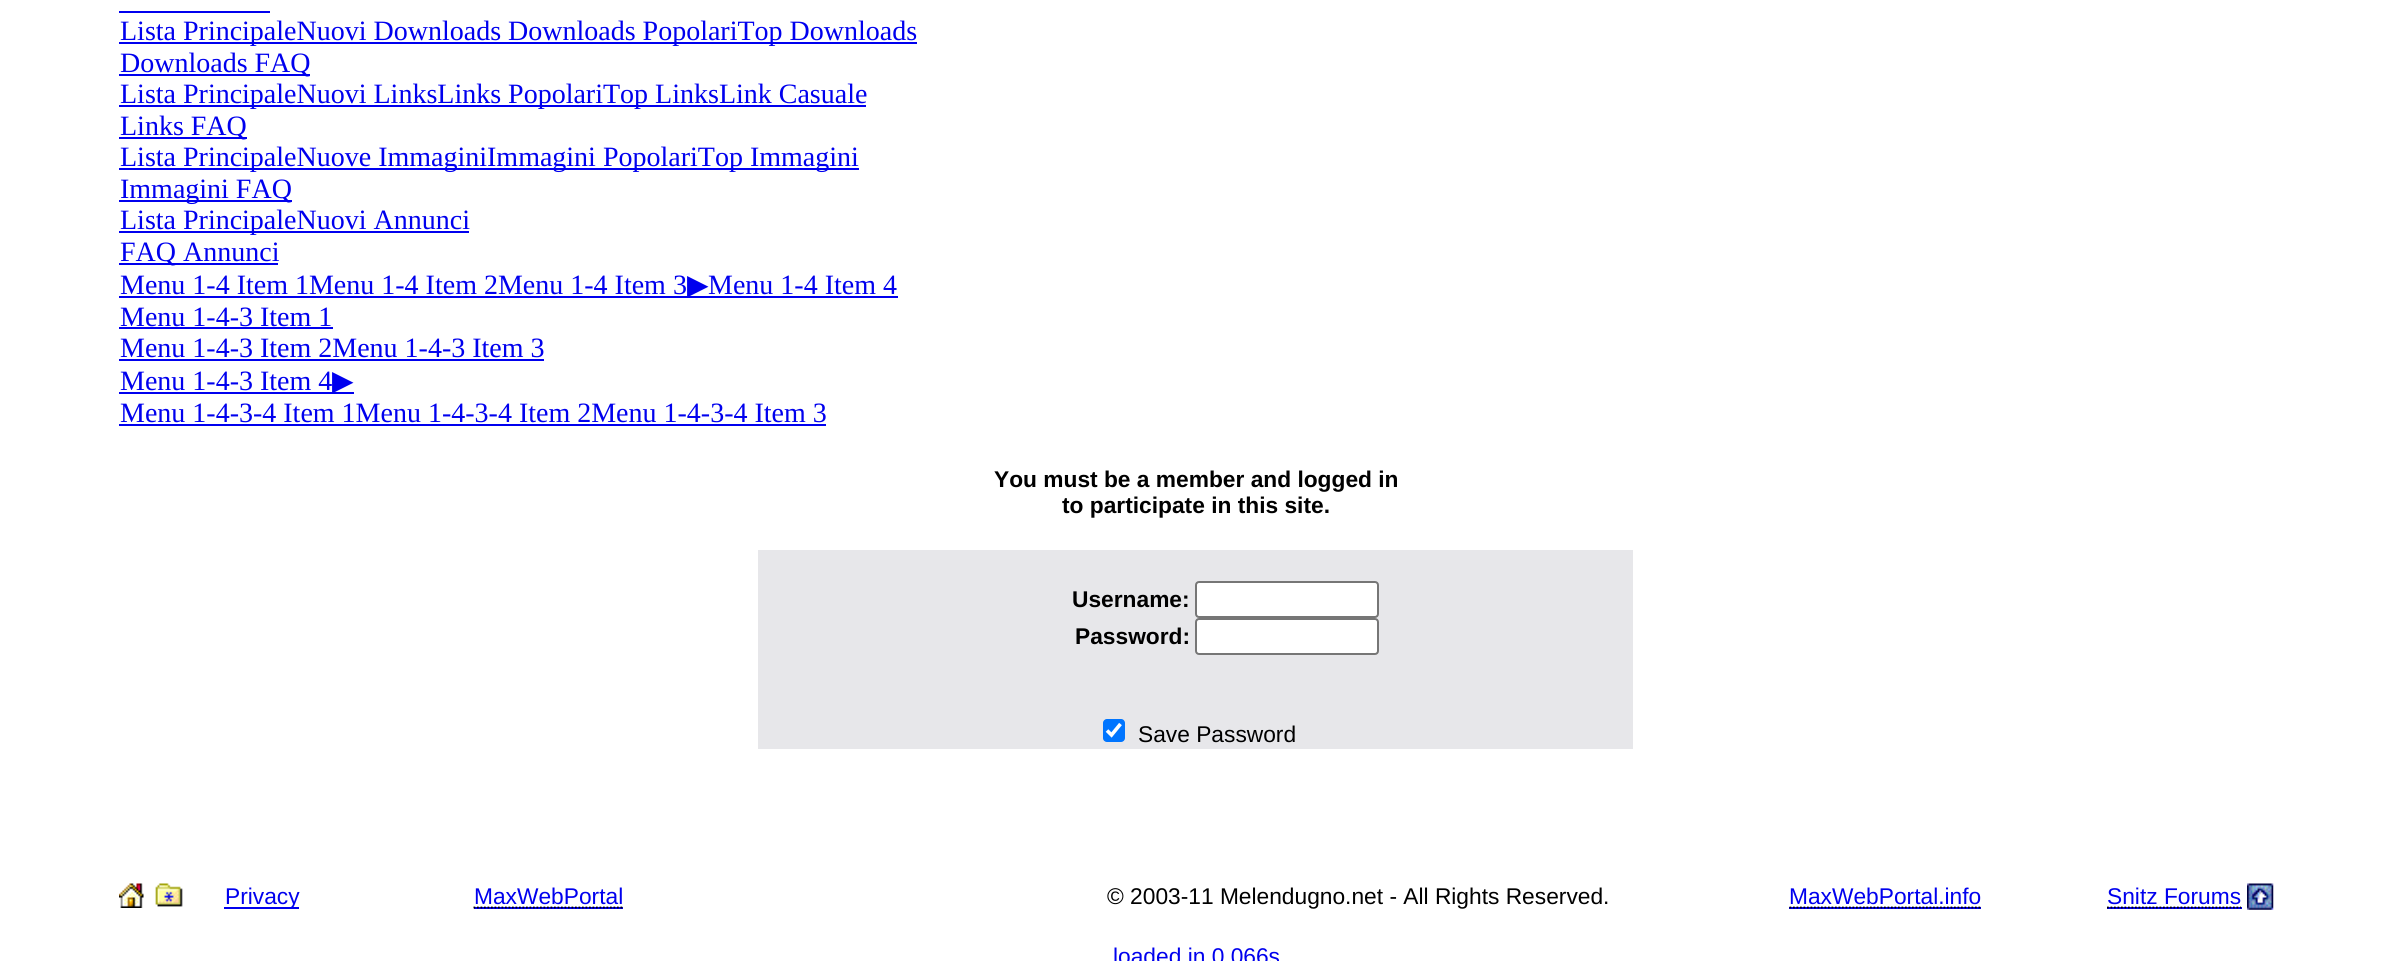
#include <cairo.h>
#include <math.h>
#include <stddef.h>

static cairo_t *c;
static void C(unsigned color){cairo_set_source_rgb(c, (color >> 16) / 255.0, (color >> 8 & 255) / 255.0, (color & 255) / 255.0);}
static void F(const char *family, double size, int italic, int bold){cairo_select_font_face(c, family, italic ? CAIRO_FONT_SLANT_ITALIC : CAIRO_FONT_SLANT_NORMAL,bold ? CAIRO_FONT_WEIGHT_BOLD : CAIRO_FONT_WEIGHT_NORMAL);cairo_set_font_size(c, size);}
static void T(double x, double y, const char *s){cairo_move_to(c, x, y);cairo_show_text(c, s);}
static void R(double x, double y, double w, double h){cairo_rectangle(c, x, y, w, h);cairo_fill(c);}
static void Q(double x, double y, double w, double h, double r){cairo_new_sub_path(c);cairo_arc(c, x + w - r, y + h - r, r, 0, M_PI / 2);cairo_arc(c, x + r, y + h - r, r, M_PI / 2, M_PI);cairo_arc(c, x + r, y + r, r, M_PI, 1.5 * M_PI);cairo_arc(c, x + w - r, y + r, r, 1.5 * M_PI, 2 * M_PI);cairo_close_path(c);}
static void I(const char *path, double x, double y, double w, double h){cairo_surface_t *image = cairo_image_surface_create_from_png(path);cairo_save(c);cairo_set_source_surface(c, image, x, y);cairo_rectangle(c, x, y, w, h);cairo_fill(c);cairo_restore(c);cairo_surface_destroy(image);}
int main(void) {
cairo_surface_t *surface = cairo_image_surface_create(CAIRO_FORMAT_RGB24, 2392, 961);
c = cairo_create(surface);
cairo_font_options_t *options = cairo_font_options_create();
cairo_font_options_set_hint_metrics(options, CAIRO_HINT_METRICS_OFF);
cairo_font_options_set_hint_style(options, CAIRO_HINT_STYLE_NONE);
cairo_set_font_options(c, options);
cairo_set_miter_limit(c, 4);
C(0xffffff);
cairo_paint(c);
C(0x0000ee);
R(119,11,151,2);
R(119,42,798,2);
F("Liberation Serif",28,0,0);
T(120,40,"Lista PrincipaleNuovi Downloads Downloads PopolariTop Downloads");
R(119,74,191,2);
T(120,72,"Downloads FAQ");
R(119,105,483,2);
T(120,103,"Lista PrincipaleNuovi LinksLinks Popolari");
R(602,105,264,2);
T(603,103,"Top LinksLink Casuale");
R(119,137,128,2);
T(120,135,"Links FAQ");
R(119,168,740,2);
T(120,166,"Lista PrincipaleNuove ImmaginiImmagini PopolariTop Immagini");
R(119,200,173,2);
T(120,198,"Immagini FAQ");
R(119,231,350,2);
T(120,229,"Lista PrincipaleNuovi Annunci");
R(119,263,159,2);
T(120,261,"FAQ Annunci");
T(120,294,"Menu 1-4 Item 1Menu 1-4 Item 2Menu 1-4 Item 3");
R(119,296,779,2);
F("DejaVu Sans",28,0,0);
T(687,294,"▶");
F("Liberation Serif",28,0,0);
T(708,294,"Menu 1-4 Item 4");
T(120,326,"Menu 1-4-3 Item 1");
R(119,327,214,2);
T(120,357,"Menu 1-4-3 Item 2Menu 1-4-3 Item 3");
R(119,359,425,2);
T(120,390,"Menu 1-4-3 Item 4");
R(119,392,235,2);
F("DejaVu Sans",28,0,0);
T(332,390,"▶");
F("Liberation Serif",28,0,0);
T(120,422,"Menu 1-4-3-4 Item 1Menu 1-4-3-4 Item 2Menu 1-4-3-4 Item 3");
R(119,424,707,2);
F("Liberation Sans",22.75,0,1);
C(0x000000);
T(994,487,"You must be a member and logged in");
T(1062,513,"to participate in this site.");
C(0xe7e7ea);
R(758,550,875,199);
C(0x000000);
T(1072,607,"Username:");
C(0xffffff);
Q(1196,582,182,35,3);
cairo_fill_preserve(c);
C(0x767676);
cairo_stroke(c);
C(0x000000);
T(1075,644,"Password:");
C(0xffffff);
Q(1196,619,182,35,3);
cairo_fill_preserve(c);
C(0x767676);
cairo_stroke(c);
C(0x0075ff);
Q(1103,719,22,23,4);
cairo_fill(c);
cairo_new_path(c);
cairo_move_to(c,1107,730.5);
cairo_line_to(c,1111.5,735);
cairo_line_to(c,1120.5,724);
C(0xffffff);
cairo_set_line_width(c,3.6);
cairo_stroke(c);
F("Liberation Sans",22.75,0,0);
C(0x000000);
T(1138,742,"Save Password");
I("1.png",119,883,25,25);
I("2.png",155,883,28,24);
C(0x0000ee);
R(224,907,75,2);
T(225,904,"Privacy");
T(474,904,"MaxWebPortal");
R(474,907,149,2);
cairo_new_path(c);
cairo_move_to(c,473.5,907.5);
cairo_line_to(c,623,907.5);
C(0x000000);
cairo_set_line_width(c,1.8);
cairo_set_dash(c,(double[]){1.75,1.75},2,0);
cairo_stroke(c);
T(1107,904,"© 2003-11 Melendugno.net - All Rights Reserved.");
C(0x0000ee);
T(1789,904,"MaxWebPortal.info");
R(1789,907,192,2);
cairo_new_path(c);
cairo_move_to(c,1789.5,907.5);
cairo_line_to(c,1981.5,907.5);
C(0x000000);
cairo_stroke(c);
C(0x0000ee);
T(2107,904,"Snitz Forums");
R(2107,907,135,2);
cairo_new_path(c);
cairo_move_to(c,2107,907.5);
cairo_line_to(c,2241,907.5);
C(0x000000);
cairo_stroke(c);
I("3.png",2247,883,27,27);
C(0x0000ee);
T(1113,964,"loaded in 0.066s");
cairo_surface_write_to_png(surface, "o.png");
cairo_font_options_destroy(options);
cairo_destroy(c);
cairo_surface_destroy(surface);
return 0;
}
